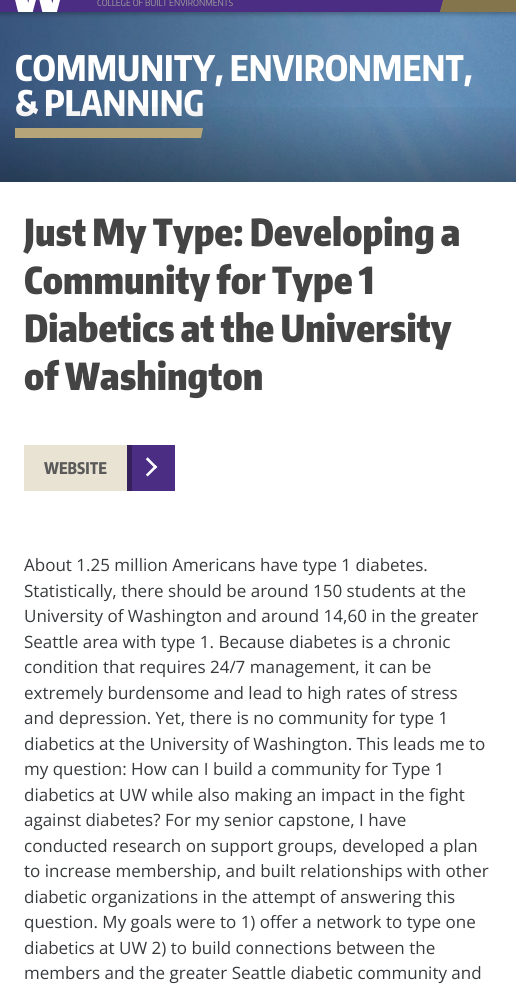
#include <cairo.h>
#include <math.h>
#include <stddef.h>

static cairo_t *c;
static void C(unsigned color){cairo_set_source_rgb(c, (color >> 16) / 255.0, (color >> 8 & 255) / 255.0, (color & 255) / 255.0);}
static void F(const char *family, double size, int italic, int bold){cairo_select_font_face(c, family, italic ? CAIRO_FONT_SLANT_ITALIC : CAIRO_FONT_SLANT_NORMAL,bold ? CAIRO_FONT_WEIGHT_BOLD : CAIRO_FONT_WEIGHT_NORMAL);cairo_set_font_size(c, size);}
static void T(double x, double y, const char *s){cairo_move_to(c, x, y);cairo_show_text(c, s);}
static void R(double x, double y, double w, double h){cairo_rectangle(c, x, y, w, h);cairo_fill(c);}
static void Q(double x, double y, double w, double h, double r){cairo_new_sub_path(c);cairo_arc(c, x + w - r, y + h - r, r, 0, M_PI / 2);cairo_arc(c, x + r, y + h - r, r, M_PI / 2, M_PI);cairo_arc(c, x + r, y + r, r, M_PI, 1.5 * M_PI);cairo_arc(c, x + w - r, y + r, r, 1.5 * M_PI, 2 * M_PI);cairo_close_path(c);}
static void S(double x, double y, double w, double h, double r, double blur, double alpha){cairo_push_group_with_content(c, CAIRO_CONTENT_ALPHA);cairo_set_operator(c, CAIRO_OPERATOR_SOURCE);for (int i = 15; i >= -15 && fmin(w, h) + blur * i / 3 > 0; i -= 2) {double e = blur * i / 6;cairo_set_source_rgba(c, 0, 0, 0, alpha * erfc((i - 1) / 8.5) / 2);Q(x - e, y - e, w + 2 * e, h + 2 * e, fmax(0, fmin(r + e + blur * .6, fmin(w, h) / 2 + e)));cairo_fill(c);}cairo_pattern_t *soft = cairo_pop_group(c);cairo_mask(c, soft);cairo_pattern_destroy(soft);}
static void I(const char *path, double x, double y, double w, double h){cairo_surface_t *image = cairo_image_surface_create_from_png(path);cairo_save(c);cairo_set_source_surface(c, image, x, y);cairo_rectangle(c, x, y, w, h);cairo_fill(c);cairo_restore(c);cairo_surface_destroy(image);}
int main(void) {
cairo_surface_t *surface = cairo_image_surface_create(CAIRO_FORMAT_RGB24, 516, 1000);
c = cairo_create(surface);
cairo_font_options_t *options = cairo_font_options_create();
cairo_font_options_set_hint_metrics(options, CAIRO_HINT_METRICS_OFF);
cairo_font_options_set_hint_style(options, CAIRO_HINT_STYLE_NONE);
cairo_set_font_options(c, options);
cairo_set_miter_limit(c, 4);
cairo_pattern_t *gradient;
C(0xffffff);
cairo_paint(c);
I("2.png",0,12,516,170);
C(0x000000);
S(0,-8,516,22,0,2.5,.3);
C(0x4b2e83);
R(0,0,444,12);
I("1.png",15,0,45,12);
F("Encode Sans Condensed",9,0,0);
C(0x9c9c9c);
T(97,6,"COLLEGE OF BUILT ENVIRONMENTS");
C(0x85754d);
R(455,0,61,12);
cairo_new_path(c);
cairo_move_to(c,452,-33);
cairo_line_to(c,467,-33);
cairo_line_to(c,455,12);
cairo_line_to(c,440,12);
cairo_close_path(c);
cairo_fill(c);
cairo_new_path(c);
cairo_move_to(c,452,-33);
cairo_line_to(c,453,-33);
cairo_line_to(c,441,12);
cairo_line_to(c,440,12);
cairo_close_path(c);
cairo_fill(c);
F("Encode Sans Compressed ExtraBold",35,0,0);
C(0xffffff);
T(15,81,"COMMUNITY, ENVIRONMENT,");
T(15,116,"& PLANNING");
gradient = cairo_pattern_create_linear(0,102,0,182);
cairo_pattern_add_color_stop_rgba(gradient,0,0,0,0,0);
cairo_pattern_add_color_stop_rgba(gradient,1,0,0,0,.32);
cairo_set_source(c,gradient);
cairo_pattern_destroy(gradient);
R(0,107,516,75);
cairo_save(c);
cairo_rectangle(c,15,128,486,10);
cairo_clip(c);
C(0xb7a57a);
cairo_new_path(c);
cairo_move_to(c,11,128);
cairo_line_to(c,203,128);
cairo_line_to(c,201,138);
cairo_line_to(c,9,138);
cairo_close_path(c);
cairo_fill(c);
cairo_restore(c);
F("Encode Sans Compressed Black",37,0,0);
C(0x444444);
T(24,246,"Just My Type: Developing a");
T(24,294,"Community for Type 1");
T(24,342,"Diabetics at the University");
T(24,390,"of Washington");
C(0xe8e3d3);
R(24,445,103,46);
C(0x4b2e83);
R(132,445,43,46);
C(0x35205c);
R(127,445,5,46);
F("Encode Sans Compressed ExtraBold",16,0,0);
C(0x5a5a5a);
T(44,474,"WEBSITE");
I("3.png",145,457,13,20);
F("Open Sans",17,0,0);
C(0x373a3c);
T(24,571,"About 1.25 million Americans have type 1 diabetes.");
T(24,597,"Statistically, there should be around 150 students at the");
T(24,622,"University of Washington and around 14,60 in the greater");
T(24,648,"Seattle area with type 1. Because diabetes is a chronic");
T(24,673,"condition that requires 24/7 management, it can be");
T(24,699,"extremely burdensome and lead to high rates of stress");
T(24,724,"and depression. Yet, there is no community for type 1");
T(24,750,"diabetics at the University of Washington. This leads me to");
T(24,775,"my question: How can I build a community for Type 1");
T(24,801,"diabetics at UW while also making an impact in the fight");
T(24,826,"against diabetes? For my senior capstone, I have");
T(24,852,"conducted research on support groups, developed a plan");
T(24,877,"to increase membership, and built relationships with other");
T(24,903,"diabetic organizations in the attempt of answering this");
T(24,928,"question. My goals were to 1) offer a network to type one");
T(24,954,"diabetics at UW 2) to build connections between the");
T(24,979,"members and the greater Seattle diabetic community and");
cairo_surface_write_to_png(surface, "o.png");
cairo_font_options_destroy(options);
cairo_destroy(c);
cairo_surface_destroy(surface);
return 0;
}
